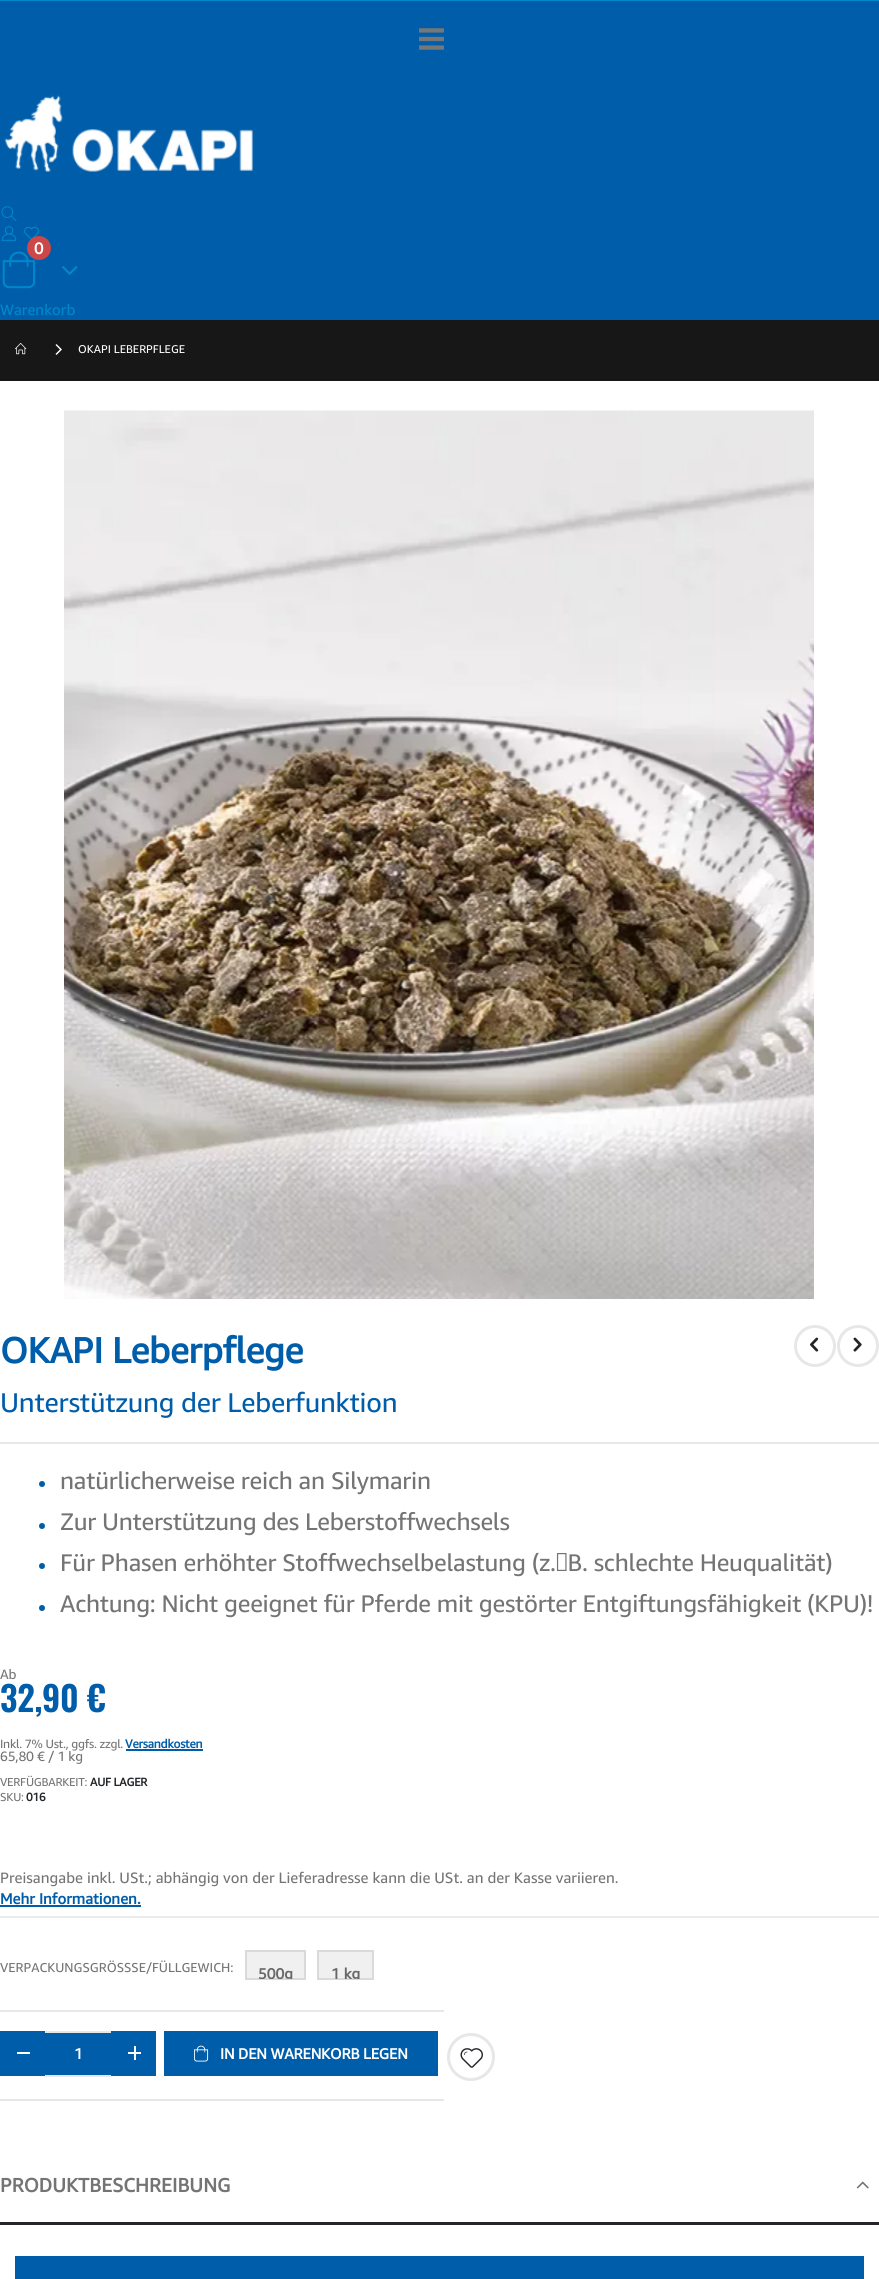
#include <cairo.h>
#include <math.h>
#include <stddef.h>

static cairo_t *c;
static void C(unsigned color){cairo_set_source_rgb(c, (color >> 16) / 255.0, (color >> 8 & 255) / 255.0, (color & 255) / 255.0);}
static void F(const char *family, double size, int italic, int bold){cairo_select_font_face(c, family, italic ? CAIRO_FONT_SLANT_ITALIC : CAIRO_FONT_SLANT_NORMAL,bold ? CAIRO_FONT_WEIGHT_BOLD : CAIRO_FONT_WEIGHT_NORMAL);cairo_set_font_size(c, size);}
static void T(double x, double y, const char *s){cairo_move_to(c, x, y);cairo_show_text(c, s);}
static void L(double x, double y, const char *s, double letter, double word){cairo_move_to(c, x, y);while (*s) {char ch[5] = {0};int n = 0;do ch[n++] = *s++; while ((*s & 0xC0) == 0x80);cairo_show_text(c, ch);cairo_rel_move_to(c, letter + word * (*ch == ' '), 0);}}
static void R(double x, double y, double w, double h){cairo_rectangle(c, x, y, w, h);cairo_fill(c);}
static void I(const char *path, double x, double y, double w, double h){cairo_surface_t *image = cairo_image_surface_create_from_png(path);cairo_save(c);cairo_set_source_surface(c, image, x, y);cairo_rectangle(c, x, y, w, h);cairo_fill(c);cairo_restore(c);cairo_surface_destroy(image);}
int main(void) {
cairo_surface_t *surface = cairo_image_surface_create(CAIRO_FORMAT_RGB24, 879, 2279);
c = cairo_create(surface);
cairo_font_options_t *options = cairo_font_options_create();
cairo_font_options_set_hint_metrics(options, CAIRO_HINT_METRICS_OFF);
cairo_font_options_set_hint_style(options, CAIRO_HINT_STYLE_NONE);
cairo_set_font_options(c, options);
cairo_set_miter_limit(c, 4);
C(0xffffff);
cairo_paint(c);
C(0x005daa);
R(0,1,879,319);
C(0x0088cc);
R(0,0,879,1);
I("1.png",419,28,25,22);
I("2.png",4,95,249,77);
I("3.png",1,206,16,15);
I("4.png",1,226,16,15);
I("5.png",24,226,15,14);
I("6.png",2,251,34,38);
C(0xcc4747);
cairo_arc(c,39,248,12,0,2 * M_PI);
cairo_fill(c);
F("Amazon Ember",16,0,1);
C(0xffffff);
T(34,254,"0");
I("7.png",62,266,16,9);
F("Amazon Ember",15,0,0);
C(0x0088cc);
T(0,315,"Warenkorb");
C(0x171717);
R(0,320,879,61);
I("8.png",15,343,12,12);
I("9.png",55,344,7,11);
F("Amazon Ember",11.25,0,0);
C(0xffffff);
T(78,353,"OKAPI LEBERPFLEGE");
I("10.png",64,410,750,889);
F("Amazon Ember",36,0,1);
C(0x005daa);
L(0,1363,"OKAPI Leberpflege",-.4,0);
cairo_new_path(c);
cairo_arc(c,815,1346,19.5,0,2 * M_PI);
C(0xe7e7e7);
cairo_set_line_width(c,3);
cairo_stroke(c);
I("11.png",810,1337,9,15);
cairo_arc(c,858,1346,19.5,0,2 * M_PI);
cairo_stroke(c);
I("12.png",853,1337,9,15);
F("Amazon Ember",27,0,0);
C(0x005daa);
L(0,1412,"Unterstützung der Leberfunktion",-.25,0);
C(0xe7e7e7);
R(0,1442,879,2);
C(0x005daa);
cairo_new_path(c);
cairo_arc(c,42,1484,3,0,2 * M_PI);
cairo_fill(c);
F("Amazon Ember",24,0,0);
C(0x747474);
L(60,1489,"natürlicherweise reich an Silymarin",-.25,0);
C(0x005daa);
cairo_new_path(c);
cairo_arc(c,42,1526,3,0,2 * M_PI);
cairo_fill(c);
C(0x747474);
L(60,1530,"Zur Unterstützung des Leberstoffwechsels",-.25,0);
C(0x005daa);
cairo_new_path(c);
cairo_arc(c,42,1566,3,0,2 * M_PI);
cairo_fill(c);
C(0x747474);
L(60,1571,"Für Phasen erhöhter Stoffwechselbelastung (z. B. schlechte Heuqualität)",-.25,0);
C(0x005daa);
cairo_new_path(c);
cairo_arc(c,42,1608,3,0,2 * M_PI);
cairo_fill(c);
C(0x747474);
L(60,1612,"Achtung: Nicht geeignet für Pferde mit gestörter Entgiftungsfähigkeit (KPU)!",-.25,0);
F("Amazon Ember",13.5,0,0);
L(0,1679,"Ab",-.25,0);
F("Oswald SemiBold",34.5,0,0);
C(0x005daa);
L(0,1712,"32,90 €",-.25,0);
F("Amazon Ember",12,0,0);
C(0x747474);
L(0,1748,"Inkl. 7% Ust., ggfs. zzgl.",-.25,0);
F("Amazon Ember",12,0,1);
C(0x005daa);
L(125,1748,"Versandkosten",-.25,0);
R(126,1749,77,2);
F("Amazon Ember",13.5,0,0);
C(0x747474);
L(0,1761,"65,80 € / 1 kg",-.25,0);
F("Amazon Ember",11.5,0,0);
L(0,1786,"VERFÜGBARKEIT:",-.25,0);
F("Amazon Ember",11.5,0,1);
C(0x222529);
L(90,1786,"AUF LAGER",-.25,0);
F("Amazon Ember",11.5,0,0);
C(0x747474);
L(0,1801,"SKU:",-.25,0);
F("Amazon Ember",11.5,0,1);
C(0x222529);
L(26,1801,"016",-.25,0);
C(0xebebeb);
R(0,1916,879,2);
F("Amazon Ember",15,0,0);
C(0x747474);
T(0,1883,"Preisangabe inkl. USt.; abhängig von der Lieferadresse kann die USt. an der Kasse variieren.");
F("Amazon Ember",15,0,1);
C(0x005daa);
T(0,1904,"Mehr Informationen.");
R(0,1905,141,2);
F("Amazon Ember",12.9,0,0);
C(0x747474);
T(0,1972,"VERPACKUNGSGRÖSSSE/FÜLLGEWICH:");
C(0xf0f0f0);
cairo_rectangle(c,246,1951,59,28);
cairo_fill_preserve(c);
C(0xdadada);
cairo_set_line_width(c,2);
cairo_stroke(c);
cairo_save(c);
cairo_rectangle(c,246,1952,59,27);
cairo_clip(c);
F("Amazon Ember",15,0,1);
C(0x686868);
T(258,1979,"500g");
cairo_restore(c);
C(0xf0f0f0);
cairo_rectangle(c,318,1951,55,28);
cairo_fill_preserve(c);
C(0xdadada);
cairo_stroke(c);
cairo_save(c);
cairo_rectangle(c,318,1952,54,27);
cairo_clip(c);
F("Amazon Ember",15,0,1);
C(0x686868);
T(331,1979,"1 kg");
cairo_restore(c);
C(0xe7e7e7);
R(0,2010,444,2);
R(0,2099,444,2);
C(0x005daa);
R(0,2031,45,45);
C(0xffffff);
R(17,2052,13,2);
C(0x005daa);
R(111,2031,45,45);
C(0xffffff);
R(128,2052,13,2);
R(134,2046,2,14);
C(0x005daa);
R(45,2033,66,42);
C(0xe7e7e7);
R(45,2031,66,2);
R(45,2075,66,2);
F("Amazon Ember",15,0,1);
C(0xffffff);
T(74,2059,"1");
C(0x005daa);
R(164,2031,274,45);
I("13.png",194,2045,15,17);
C(0xffffff);
L(220,2059,"IN DEN WARENKORB LEGEN",-.25,0);
cairo_new_path(c);
cairo_arc(c,471,2057,22.5,0,2 * M_PI);
C(0xe7e7e7);
cairo_set_line_width(c,3);
cairo_stroke(c);
I("14.png",460,2048,23,20);
C(0x222529);
R(0,2222,879,3);
F("Amazon Ember",19.5,0,1);
C(0x747474);
T(0,2192,"PRODUKTBESCHREIBUNG");
I("15.png",856,2181,13,8);
C(0x005daa);
R(15,2256,849,23);
cairo_surface_write_to_png(surface, "o.png");
cairo_font_options_destroy(options);
cairo_destroy(c);
cairo_surface_destroy(surface);
return 0;
}
